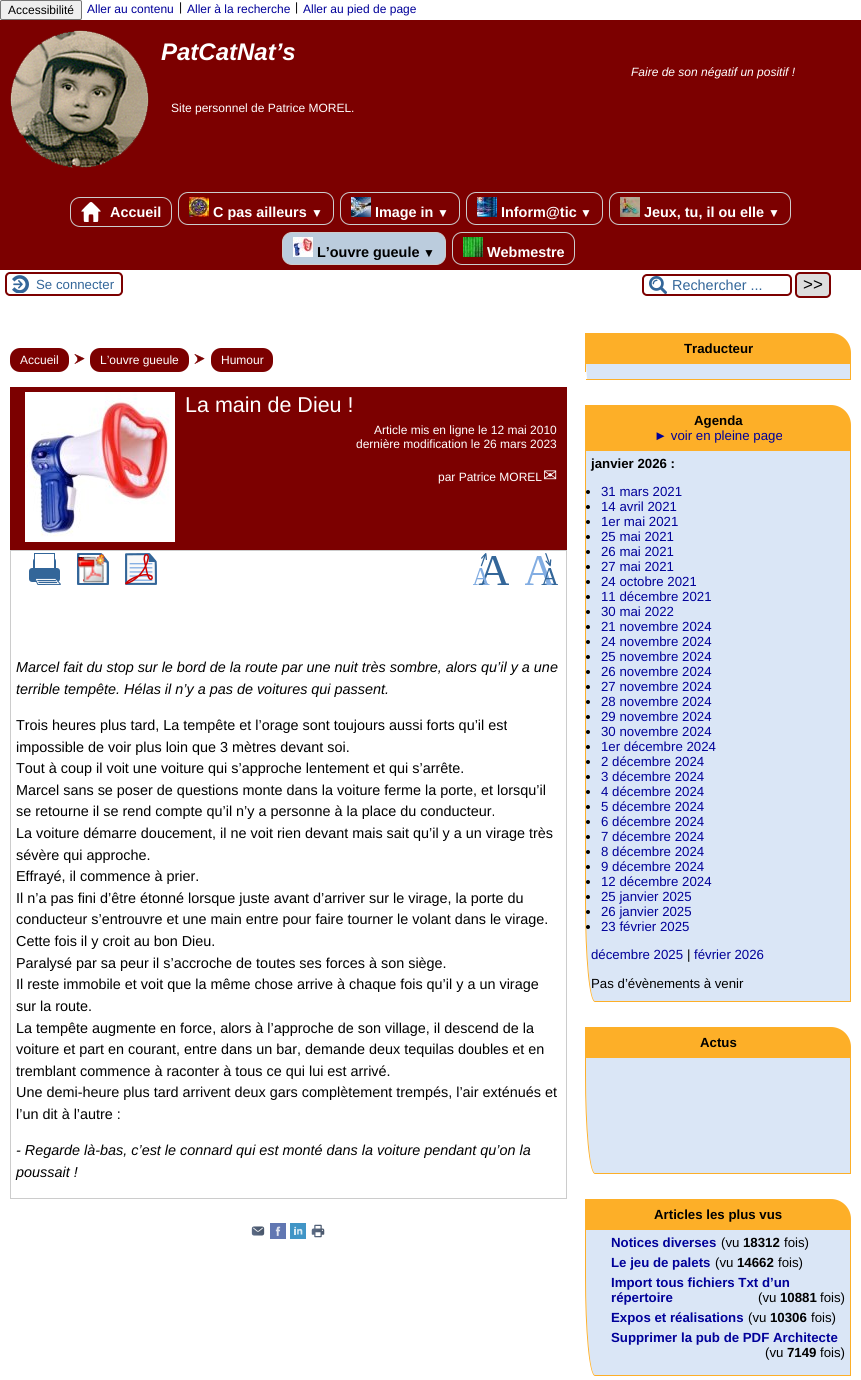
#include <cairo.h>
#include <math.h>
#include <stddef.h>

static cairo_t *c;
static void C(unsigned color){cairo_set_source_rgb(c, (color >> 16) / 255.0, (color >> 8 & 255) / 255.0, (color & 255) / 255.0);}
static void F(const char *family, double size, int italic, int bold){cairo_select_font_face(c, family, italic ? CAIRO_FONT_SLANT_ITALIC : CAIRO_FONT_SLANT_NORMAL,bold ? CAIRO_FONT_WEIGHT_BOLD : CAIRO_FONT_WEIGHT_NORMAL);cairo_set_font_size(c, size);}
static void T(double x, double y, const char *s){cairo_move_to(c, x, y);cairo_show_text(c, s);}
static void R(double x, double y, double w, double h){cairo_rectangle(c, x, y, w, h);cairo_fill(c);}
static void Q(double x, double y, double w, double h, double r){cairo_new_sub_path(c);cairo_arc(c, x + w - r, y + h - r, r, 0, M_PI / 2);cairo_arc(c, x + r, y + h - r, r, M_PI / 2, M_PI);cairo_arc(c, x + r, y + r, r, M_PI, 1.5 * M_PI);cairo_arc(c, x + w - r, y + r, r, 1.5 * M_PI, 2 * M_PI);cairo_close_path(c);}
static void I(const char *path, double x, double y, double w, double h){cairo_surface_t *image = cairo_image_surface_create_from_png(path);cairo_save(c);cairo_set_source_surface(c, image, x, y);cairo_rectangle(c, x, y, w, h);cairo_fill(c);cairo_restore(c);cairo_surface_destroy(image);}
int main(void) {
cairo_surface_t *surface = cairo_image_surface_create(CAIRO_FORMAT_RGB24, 861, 1380);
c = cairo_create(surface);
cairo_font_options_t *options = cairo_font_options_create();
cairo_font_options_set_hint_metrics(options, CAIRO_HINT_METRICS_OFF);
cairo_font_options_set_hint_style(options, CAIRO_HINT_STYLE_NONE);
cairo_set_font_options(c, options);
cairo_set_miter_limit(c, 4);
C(0xffffff);
cairo_paint(c);
C(0x7c0000);
R(0,20,861,250);
C(0xefefef);
Q(.5,.5,81,19,1.5);
cairo_fill_preserve(c);
C(0x767676);
cairo_set_line_width(c,1);
cairo_stroke(c);
F("Liberation Sans",12,0,0);
C(0x000000);
T(8,14,"Accessibilité");
C(0x000099);
T(87,13,"Aller au contenu");
C(0x000000);
T(179,11,"|");
C(0x000099);
T(187,13,"Aller à la recherche");
C(0x000000);
T(295,11,"|");
C(0x000099);
T(303,13,"Aller au pied de page");
I("1.png",10,30,139,138);
F("Liberation Sans",24,1,1);
C(0xffffff);
T(161,60,"PatCatNat’s");
F("Liberation Sans",12,1,0);
T(631,76,"Faire de son négatif un positif !");
F("Liberation Sans",12,0,0);
T(171,112,"Site personnel de Patrice MOREL.");
Q(70.5,197.5,101,29,9.5);
C(0xcccccc);
cairo_stroke(c);
I("2.png",81,202,20,20);
F("Liberation Sans",14.4,0,1);
C(0xffffff);
T(110,217,"Accueil");
Q(178.5,192.5,155,32,9.5);
C(0xcccccc);
cairo_stroke(c);
I("3.png",189,197,20,20);
C(0xffffff);
T(213,217,"C pas ailleurs");
F("Liberation Sans",12,0,1);
T(311,217,"▼");
Q(340.5,192.5,119,32,9.5);
C(0xcccccc);
cairo_stroke(c);
I("4.png",351,197,20,20);
F("Liberation Sans",14.4,0,1);
C(0xffffff);
T(375,217,"Image in");
F("Liberation Sans",12,0,1);
T(437,217,"▼");
Q(466.5,192.5,136,32,9.5);
C(0xcccccc);
cairo_stroke(c);
I("5.png",477,197,20,20);
F("Liberation Sans",14.4,0,1);
C(0xffffff);
T(501,217,"Inform@tic");
F("Liberation Sans",12,0,1);
T(580,217,"▼");
Q(609.5,192.5,181,32,9.5);
C(0xcccccc);
cairo_stroke(c);
I("6.png",620,197,20,20);
F("Liberation Sans",14.4,0,1);
C(0xffffff);
T(644,217,"Jeux, tu, il ou elle");
F("Liberation Sans",12,0,1);
T(768,217,"▼");
C(0xbbccdd);
Q(282.5,232.5,163,32,9.5);
cairo_fill_preserve(c);
C(0xcccccc);
cairo_stroke(c);
I("7.png",293,237,20,20);
F("Liberation Sans",14.4,0,1);
C(0x000000);
T(317,257,"L’ouvre gueule");
F("Liberation Sans",12,0,1);
T(423,257,"▼");
Q(452.5,232.5,122,32,9.5);
C(0xcccccc);
cairo_stroke(c);
I("8.png",463,237,20,20);
F("Liberation Sans",14.4,0,1);
C(0xffffff);
T(487,257,"Webmestre");
I("9.png",12,275,17,18);
Q(6,273,116,22,4);
C(0x7c0000);
cairo_set_line_width(c,2);
cairo_stroke(c);
F("Liberation Sans",13.25,0,0);
C(0x336699);
T(36,289,"Se connecter");
I("10.png",649,276,18,18);
Q(643,275,148,20,4);
C(0x7c0000);
cairo_stroke(c);
F("Liberation Sans",14.4,0,0);
C(0x336699);
T(672,290,"Rechercher ...");
C(0xdddddd);
Q(796,273,34,24,4);
cairo_fill_preserve(c);
C(0x7c0000);
cairo_stroke(c);
F("Liberation Sans",17,0,0);
C(0x000000);
T(803,290,">>");
C(0x7c0000);
Q(10,348,59,24,10);
cairo_fill(c);
F("Liberation Sans",12,0,0);
C(0xffffff);
T(20,364,"Accueil");
I("11.png",74,354,11,10);
C(0x7c0000);
Q(90,348,99,24,10);
cairo_fill(c);
C(0xffffff);
T(100,364,"L’ouvre gueule");
I("11.png",194,354,11,10);
C(0x7c0000);
Q(211,348,62,24,10);
cairo_fill(c);
C(0xffffff);
T(221,364,"Humour");
C(0x7c0000);
R(10,387,557,163);
I("12.png",25,392,150,150);
F("Liberation Sans",21.5,0,0);
C(0xffffff);
T(185,412,"La main de Dieu !");
F("Liberation Sans",12,0,0);
T(374,434,"Article mis en ligne le 12 mai 2010");
T(356,448,"dernière modification le 26 mars 2023");
T(438,481,"par Patrice MOREL");
F("DejaVu Sans",17,0,0);
T(543,481,"✉");
cairo_rectangle(c,10.5,550.5,556,648);
C(0xcccccc);
cairo_set_line_width(c,1);
cairo_stroke(c);
I("13.png",29,553,32,32);
I("14.png",77,553,32,32);
I("15.png",78,555,28,28);
I("16.png",125,553,32,32);
I("17.png",473,553,36,32);
I("18.png",525,553,33,32);
F("Liberation Sans",14.4,1,0);
C(0x000000);
T(16,672,"Marcel fait du stop sur le bord de la route par une nuit très sombre, alors qu’il y a une");
T(16,694,"terrible tempête. Hélas il n’y a pas de voitures qui passent.");
F("Liberation Sans",14.4,0,0);
T(16,730,"Trois heures plus tard, La tempête et l’orage sont toujours aussi forts qu’il est");
T(16,752,"impossible de voir plus loin que 3 mètres devant soi.");
T(16,773,"Tout à coup il voit une voiture qui s’approche lentement et qui s’arrête.");
T(16,795,"Marcel sans se poser de questions monte dans la voiture ferme la porte, et lorsqu’il");
T(16,816,"se retourne il se rend compte qu’il n’y a personne à la place du conducteur.");
T(16,838,"La voiture démarre doucement, il ne voit rien devant mais sait qu’il y a un virage très");
T(16,860,"sévère qui approche.");
T(16,881,"Effrayé, il commence à prier.");
T(16,903,"Il n’a pas fini d’être étonné lorsque juste avant d’arriver sur le virage, la porte du");
T(16,924,"conducteur s’entrouvre et une main entre pour faire tourner le volant dans le virage.");
T(16,946,"Cette fois il y croit au bon Dieu.");
T(16,968,"Paralysé par sa peur il s’accroche de toutes ses forces à son siège.");
T(16,989,"Il reste immobile et voit que la même chose arrive à chaque fois qu’il y a un virage");
T(16,1011,"sur la route.");
T(16,1033,"La tempête augmente en force, alors à l’approche de son village, il descend de la");
T(16,1054,"voiture et part en courant, entre dans un bar, demande deux tequilas doubles et en");
T(16,1076,"tremblant commence à raconter à tous ce qui lui est arrivé.");
T(16,1097,"Une demi-heure plus tard arrivent deux gars complètement trempés, l’air exténués et");
T(16,1119,"l’un dit à l’autre :");
F("Liberation Sans",14.4,1,0);
T(16,1155,"- Regarde là-bas, c’est le connard qui est monté dans la voiture pendant qu’on la");
T(16,1177,"poussait !");
I("19.png",251,1226,14,10);
I("20.png",270,1223,16,16);
I("21.png",290,1223,16,16);
I("22.png",311,1224,14,14);
C(0xfdaf28);
cairo_new_path(c);
cairo_move_to(c,585,333);
cairo_line_to(c,831,333);
cairo_curve_to(c,842,333,851,342,851,353);
cairo_line_to(c,851,364);
cairo_line_to(c,585,364);
cairo_close_path(c);
cairo_fill(c);
F("Liberation Sans",13.25,0,1);
C(0x000000);
T(684,353,"Traducteur");
C(0xdae6f6);
cairo_new_path(c);
cairo_move_to(c,586,364);
cairo_line_to(c,850,364);
cairo_line_to(c,850,379);
cairo_line_to(c,587,379);
cairo_close_path(c);
cairo_fill(c);
C(0xfdaf28);
R(850,364,1,16);
R(586,379,265,1);
R(585,364,1,8);
cairo_new_path(c);
cairo_move_to(c,585,405);
cairo_line_to(c,831,405);
cairo_curve_to(c,842,405,851,414,851,425);
cairo_line_to(c,851,451);
cairo_line_to(c,585,451);
cairo_close_path(c);
cairo_fill(c);
C(0x000000);
T(694,425,"Agenda");
F("Liberation Sans",13.25,0,0);
C(0x000099);
T(654,440,"► voir en pleine page");
C(0xdae6f6);
cairo_new_path(c);
cairo_move_to(c,586,451);
cairo_line_to(c,850,451);
cairo_line_to(c,850,1001);
cairo_line_to(c,595,1001);
cairo_curve_to(c,590,1001,586,957,586,902);
cairo_close_path(c);
cairo_fill(c);
C(0xfdaf28);
cairo_set_fill_rule(c,CAIRO_FILL_RULE_EVEN_ODD);
cairo_new_path(c);
cairo_move_to(c,585,451);
cairo_line_to(c,851,451);
cairo_line_to(c,851,1002);
cairo_line_to(c,595,1002);
cairo_curve_to(c,589,1002,585,957,585,902);
cairo_close_path(c);
cairo_move_to(c,586,451);
cairo_line_to(c,850,451);
cairo_line_to(c,850,1001);
cairo_line_to(c,595,1001);
cairo_curve_to(c,590,1001,586,957,586,902);
cairo_close_path(c);
cairo_fill(c);
F("Liberation Sans",13.25,0,1);
C(0x000000);
T(591,468,"janvier 2026 :");
cairo_new_path(c);
cairo_arc(c,588,492,2,0,2 * M_PI);
cairo_fill(c);
F("Liberation Sans",13.25,0,0);
C(0x000099);
T(601,496,"31 mars 2021");
C(0x000000);
cairo_new_path(c);
cairo_arc(c,588,507,2,0,2 * M_PI);
cairo_fill(c);
C(0x000099);
T(601,511,"14 avril 2021");
C(0x000000);
cairo_new_path(c);
cairo_arc(c,588,522,2,0,2 * M_PI);
cairo_fill(c);
C(0x000099);
T(601,526,"1er mai 2021");
C(0x000000);
cairo_new_path(c);
cairo_arc(c,588,537,2,0,2 * M_PI);
cairo_fill(c);
C(0x000099);
T(601,541,"25 mai 2021");
C(0x000000);
cairo_new_path(c);
cairo_arc(c,588,552,2,0,2 * M_PI);
cairo_fill(c);
C(0x000099);
T(601,556,"26 mai 2021");
C(0x000000);
cairo_new_path(c);
cairo_arc(c,588,567,2,0,2 * M_PI);
cairo_fill(c);
C(0x000099);
T(601,571,"27 mai 2021");
C(0x000000);
cairo_new_path(c);
cairo_arc(c,588,582,2,0,2 * M_PI);
cairo_fill(c);
C(0x000099);
T(601,586,"24 octobre 2021");
C(0x000000);
cairo_new_path(c);
cairo_arc(c,588,597,2,0,2 * M_PI);
cairo_fill(c);
C(0x000099);
T(601,601,"11 décembre 2021");
C(0x000000);
cairo_new_path(c);
cairo_arc(c,588,612,2,0,2 * M_PI);
cairo_fill(c);
C(0x000099);
T(601,616,"30 mai 2022");
C(0x000000);
cairo_new_path(c);
cairo_arc(c,588,627,2,0,2 * M_PI);
cairo_fill(c);
C(0x000099);
T(601,631,"21 novembre 2024");
C(0x000000);
cairo_new_path(c);
cairo_arc(c,588,642,2,0,2 * M_PI);
cairo_fill(c);
C(0x000099);
T(601,646,"24 novembre 2024");
C(0x000000);
cairo_new_path(c);
cairo_arc(c,588,657,2,0,2 * M_PI);
cairo_fill(c);
C(0x000099);
T(601,661,"25 novembre 2024");
C(0x000000);
cairo_new_path(c);
cairo_arc(c,588,672,2,0,2 * M_PI);
cairo_fill(c);
C(0x000099);
T(601,676,"26 novembre 2024");
C(0x000000);
cairo_new_path(c);
cairo_arc(c,588,687,2,0,2 * M_PI);
cairo_fill(c);
C(0x000099);
T(601,691,"27 novembre 2024");
C(0x000000);
cairo_new_path(c);
cairo_arc(c,588,702,2,0,2 * M_PI);
cairo_fill(c);
C(0x000099);
T(601,706,"28 novembre 2024");
C(0x000000);
cairo_new_path(c);
cairo_arc(c,588,717,2,0,2 * M_PI);
cairo_fill(c);
C(0x000099);
T(601,721,"29 novembre 2024");
C(0x000000);
cairo_new_path(c);
cairo_arc(c,588,732,2,0,2 * M_PI);
cairo_fill(c);
C(0x000099);
T(601,736,"30 novembre 2024");
C(0x000000);
cairo_new_path(c);
cairo_arc(c,588,747,2,0,2 * M_PI);
cairo_fill(c);
C(0x000099);
T(601,751,"1er décembre 2024");
C(0x000000);
cairo_new_path(c);
cairo_arc(c,588,762,2,0,2 * M_PI);
cairo_fill(c);
C(0x000099);
T(601,766,"2 décembre 2024");
C(0x000000);
cairo_new_path(c);
cairo_arc(c,588,777,2,0,2 * M_PI);
cairo_fill(c);
C(0x000099);
T(601,781,"3 décembre 2024");
C(0x000000);
cairo_new_path(c);
cairo_arc(c,588,792,2,0,2 * M_PI);
cairo_fill(c);
C(0x000099);
T(601,796,"4 décembre 2024");
C(0x000000);
cairo_new_path(c);
cairo_arc(c,588,807,2,0,2 * M_PI);
cairo_fill(c);
C(0x000099);
T(601,811,"5 décembre 2024");
C(0x000000);
cairo_new_path(c);
cairo_arc(c,588,822,2,0,2 * M_PI);
cairo_fill(c);
C(0x000099);
T(601,826,"6 décembre 2024");
C(0x000000);
cairo_new_path(c);
cairo_arc(c,588,837,2,0,2 * M_PI);
cairo_fill(c);
C(0x000099);
T(601,841,"7 décembre 2024");
C(0x000000);
cairo_new_path(c);
cairo_arc(c,588,852,2,0,2 * M_PI);
cairo_fill(c);
C(0x000099);
T(601,856,"8 décembre 2024");
C(0x000000);
cairo_new_path(c);
cairo_arc(c,588,867,2,0,2 * M_PI);
cairo_fill(c);
C(0x000099);
T(601,871,"9 décembre 2024");
C(0x000000);
cairo_new_path(c);
cairo_arc(c,588,882,2,0,2 * M_PI);
cairo_fill(c);
C(0x000099);
T(601,886,"12 décembre 2024");
C(0x000000);
cairo_new_path(c);
cairo_arc(c,588,897,2,0,2 * M_PI);
cairo_fill(c);
C(0x000099);
T(601,901,"25 janvier 2025");
C(0x000000);
cairo_new_path(c);
cairo_arc(c,588,912,2,0,2 * M_PI);
cairo_fill(c);
C(0x000099);
T(601,916,"26 janvier 2025");
C(0x000000);
cairo_new_path(c);
cairo_arc(c,588,927,2,0,2 * M_PI);
cairo_fill(c);
C(0x000099);
T(601,931,"23 février 2025");
T(591,959,"décembre 2025");
C(0x000000);
T(687,959,"|");
C(0x000099);
T(694,959,"février 2026");
C(0x000000);
T(591,988,"Pas d’évènements à venir");
C(0xfdaf28);
cairo_new_path(c);
cairo_move_to(c,585,1027);
cairo_line_to(c,831,1027);
cairo_curve_to(c,842,1027,851,1036,851,1047);
cairo_line_to(c,851,1058);
cairo_line_to(c,585,1058);
cairo_close_path(c);
cairo_fill(c);
F("Liberation Sans",13.25,0,1);
C(0x000000);
T(700,1047,"Actus");
C(0xdae6f6);
cairo_set_fill_rule(c,CAIRO_FILL_RULE_WINDING);
cairo_new_path(c);
cairo_move_to(c,586,1058);
cairo_line_to(c,850,1058);
cairo_line_to(c,850,1173);
cairo_line_to(c,595,1173);
cairo_curve_to(c,590,1173,586,1129,586,1074);
cairo_close_path(c);
cairo_fill(c);
C(0xfdaf28);
cairo_set_fill_rule(c,CAIRO_FILL_RULE_EVEN_ODD);
cairo_new_path(c);
cairo_move_to(c,585,1058);
cairo_line_to(c,851,1058);
cairo_line_to(c,851,1174);
cairo_line_to(c,595,1174);
cairo_curve_to(c,589,1174,585,1129,585,1074);
cairo_close_path(c);
cairo_move_to(c,586,1058);
cairo_line_to(c,850,1058);
cairo_line_to(c,850,1173);
cairo_line_to(c,595,1173);
cairo_curve_to(c,590,1173,586,1129,586,1074);
cairo_close_path(c);
cairo_fill(c);
cairo_new_path(c);
cairo_move_to(c,585,1199);
cairo_line_to(c,831,1199);
cairo_curve_to(c,842,1199,851,1208,851,1219);
cairo_line_to(c,851,1230);
cairo_line_to(c,585,1230);
cairo_close_path(c);
cairo_fill(c);
C(0x000000);
T(654,1219,"Articles les plus vus");
C(0xdae6f6);
cairo_set_fill_rule(c,CAIRO_FILL_RULE_WINDING);
cairo_new_path(c);
cairo_move_to(c,586,1230);
cairo_line_to(c,850,1230);
cairo_line_to(c,850,1375);
cairo_line_to(c,595,1375);
cairo_curve_to(c,590,1375,586,1331,586,1276);
cairo_close_path(c);
cairo_fill(c);
C(0xfdaf28);
cairo_set_fill_rule(c,CAIRO_FILL_RULE_EVEN_ODD);
cairo_new_path(c);
cairo_move_to(c,585,1230);
cairo_line_to(c,851,1230);
cairo_line_to(c,851,1376);
cairo_line_to(c,595,1376);
cairo_curve_to(c,589,1376,585,1331,585,1276);
cairo_close_path(c);
cairo_move_to(c,586,1230);
cairo_line_to(c,850,1230);
cairo_line_to(c,850,1375);
cairo_line_to(c,595,1375);
cairo_curve_to(c,590,1375,586,1331,586,1276);
cairo_close_path(c);
cairo_fill(c);
C(0x000099);
T(611,1247,"Notices diverses");
F("Liberation Sans",13.25,0,0);
C(0x000000);
T(721,1247,"(vu");
F("Liberation Sans",13.25,0,1);
T(743,1247,"18312");
F("Liberation Sans",13.25,0,0);
T(784,1247,"fois)");
F("Liberation Sans",13.25,0,1);
C(0x000099);
T(611,1267,"Le jeu de palets");
F("Liberation Sans",13.25,0,0);
C(0x000000);
T(715,1267,"(vu");
F("Liberation Sans",13.25,0,1);
T(737,1267,"14662");
F("Liberation Sans",13.25,0,0);
T(778,1267,"fois)");
F("Liberation Sans",13.25,0,1);
C(0x000099);
T(611,1287,"Import tous fichiers Txt d’un");
T(611,1302,"répertoire");
F("Liberation Sans",13.25,0,0);
C(0x000000);
T(758,1302,"(vu");
F("Liberation Sans",13.25,0,1);
T(780,1302,"10881");
F("Liberation Sans",13.25,0,0);
T(820,1302,"fois)");
F("Liberation Sans",13.25,0,1);
C(0x000099);
T(611,1322,"Expos et réalisations");
F("Liberation Sans",13.25,0,0);
C(0x000000);
T(748,1322,"(vu");
F("Liberation Sans",13.25,0,1);
T(770,1322,"10306");
F("Liberation Sans",13.25,0,0);
T(811,1322,"fois)");
F("Liberation Sans",13.25,0,1);
C(0x000099);
T(611,1342,"Supprimer la pub de PDF Architecte");
F("Liberation Sans",13.25,0,0);
C(0x000000);
T(765,1357,"(vu");
F("Liberation Sans",13.25,0,1);
T(787,1357,"7149");
F("Liberation Sans",13.25,0,0);
T(820,1357,"fois)");
cairo_surface_write_to_png(surface, "o.png");
cairo_font_options_destroy(options);
cairo_destroy(c);
cairo_surface_destroy(surface);
return 0;
}
